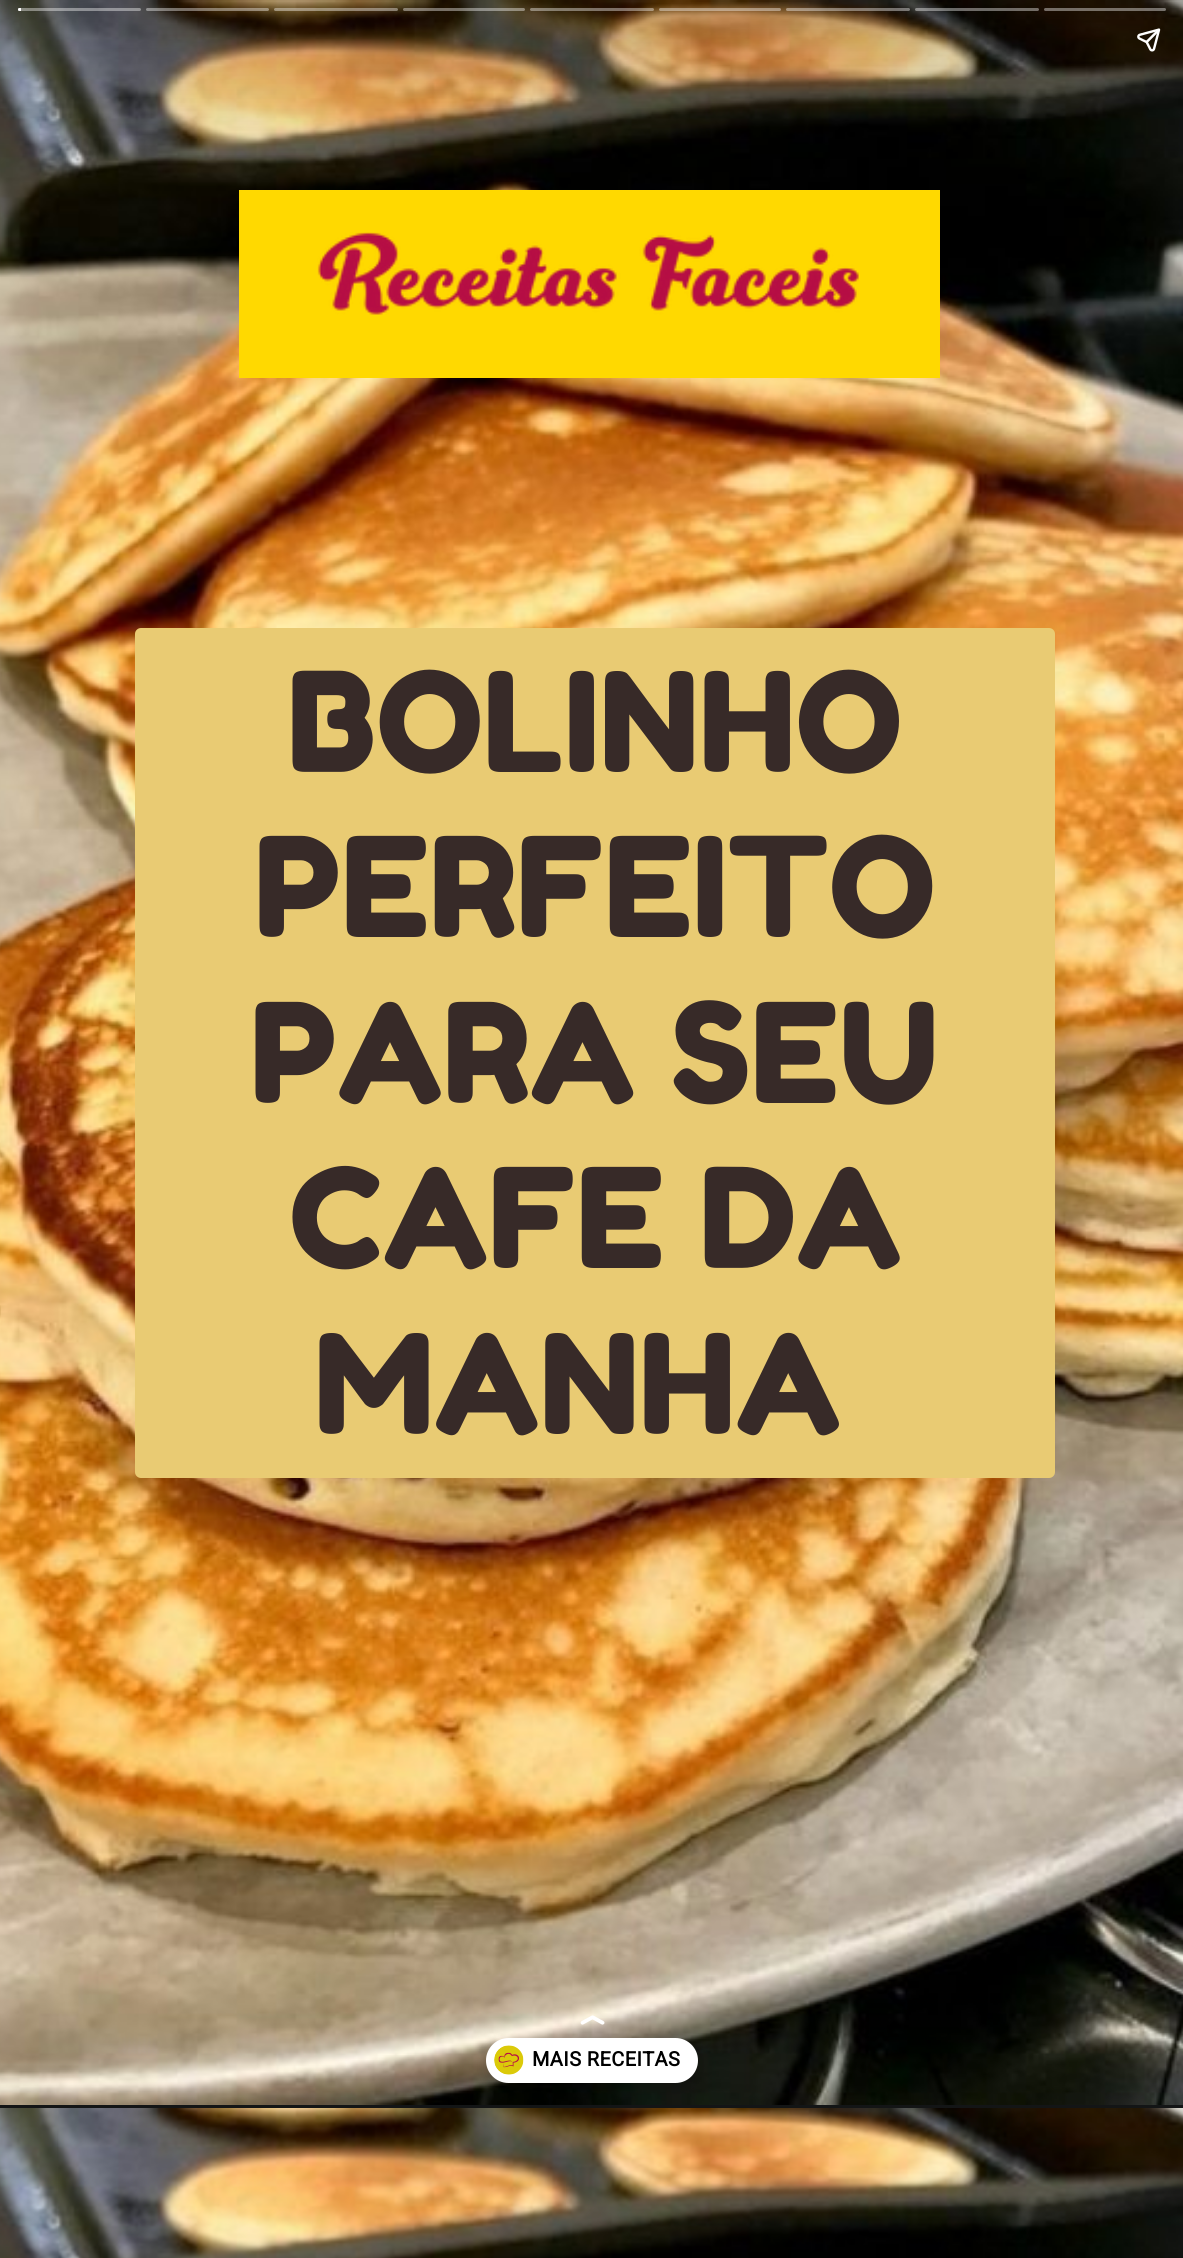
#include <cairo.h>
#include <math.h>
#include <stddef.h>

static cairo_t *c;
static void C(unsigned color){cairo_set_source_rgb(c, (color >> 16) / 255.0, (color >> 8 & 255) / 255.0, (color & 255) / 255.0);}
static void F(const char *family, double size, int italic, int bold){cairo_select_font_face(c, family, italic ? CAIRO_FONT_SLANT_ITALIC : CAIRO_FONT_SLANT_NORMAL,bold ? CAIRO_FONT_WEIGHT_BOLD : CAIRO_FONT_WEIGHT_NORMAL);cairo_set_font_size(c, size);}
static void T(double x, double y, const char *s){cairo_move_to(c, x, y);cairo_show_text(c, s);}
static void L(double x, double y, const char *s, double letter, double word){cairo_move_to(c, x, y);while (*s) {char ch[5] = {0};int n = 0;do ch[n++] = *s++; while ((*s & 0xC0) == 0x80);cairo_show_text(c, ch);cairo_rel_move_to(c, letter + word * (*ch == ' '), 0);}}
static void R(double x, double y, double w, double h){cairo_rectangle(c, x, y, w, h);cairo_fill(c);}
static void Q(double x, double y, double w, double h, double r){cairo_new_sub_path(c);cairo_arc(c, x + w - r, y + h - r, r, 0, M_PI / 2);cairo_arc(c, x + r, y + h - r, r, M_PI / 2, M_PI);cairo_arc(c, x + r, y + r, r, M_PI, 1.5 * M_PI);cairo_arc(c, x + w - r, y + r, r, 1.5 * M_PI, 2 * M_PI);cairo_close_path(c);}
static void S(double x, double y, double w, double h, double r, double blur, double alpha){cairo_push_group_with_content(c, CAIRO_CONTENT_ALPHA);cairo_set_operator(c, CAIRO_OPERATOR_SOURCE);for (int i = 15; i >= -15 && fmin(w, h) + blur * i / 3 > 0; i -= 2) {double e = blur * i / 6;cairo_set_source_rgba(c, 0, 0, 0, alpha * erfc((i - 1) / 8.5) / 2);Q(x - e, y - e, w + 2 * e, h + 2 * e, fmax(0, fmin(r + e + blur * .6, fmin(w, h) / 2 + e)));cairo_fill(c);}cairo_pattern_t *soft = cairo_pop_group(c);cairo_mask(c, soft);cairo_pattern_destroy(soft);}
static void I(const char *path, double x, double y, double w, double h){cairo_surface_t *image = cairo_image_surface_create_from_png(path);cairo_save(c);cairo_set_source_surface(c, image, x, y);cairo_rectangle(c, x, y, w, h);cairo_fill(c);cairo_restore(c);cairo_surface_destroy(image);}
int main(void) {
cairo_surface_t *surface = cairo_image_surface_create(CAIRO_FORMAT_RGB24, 1183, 2258);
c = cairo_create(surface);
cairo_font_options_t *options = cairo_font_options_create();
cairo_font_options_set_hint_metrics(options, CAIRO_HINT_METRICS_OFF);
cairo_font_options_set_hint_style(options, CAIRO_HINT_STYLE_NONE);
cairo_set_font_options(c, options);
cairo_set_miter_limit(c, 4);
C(0x131516);
cairo_paint(c);
I("2.png",0,0,1183,2105);
cairo_set_source_rgba(c,1,1,1,0.4);
Q(18,8,123,3,1.5);
cairo_fill(c);
C(0xffffff);
cairo_new_path(c);
cairo_move_to(c,19.5,8);
cairo_line_to(c,21,8);
cairo_line_to(c,21,11);
cairo_line_to(c,19.5,11);
cairo_curve_to(c,18.5,11,18,10.5,18,9.5);
cairo_curve_to(c,18,8.5,18.5,8,19.5,8);
cairo_close_path(c);
cairo_fill(c);
cairo_set_source_rgba(c,1,1,1,0.4);
Q(146,8,123,3,1.5);
cairo_fill(c);
Q(274,8,124,3,1.5);
cairo_fill(c);
Q(403,8,122,3,1.5);
cairo_fill(c);
Q(530,8,124,3,1.5);
cairo_fill(c);
Q(659,8,122,3,1.5);
cairo_fill(c);
Q(786,8,124,3,1.5);
cairo_fill(c);
Q(915,8,124,3,1.5);
cairo_fill(c);
Q(1044,8,122,3,1.5);
cairo_fill(c);
I("1.png",1137,28,24,24);
C(0xffd900);
R(239,190,701,188);
I("3.png",317,232,542,83);
C(0xe9cb73);
Q(135,628,920,850,6);
cairo_fill(c);
F("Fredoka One",138,0,0);
C(0x372a28);
T(287,772,"BOLINHO");
T(254,937,"PERFEITO");
T(250,1103,"PARA SEU");
T(289,1268,"CAFE DA");
T(314,1434,"MANHA");
I("4.png",580,2015,25,10);
C(0x000000);
S(486,2043,212,45,22.5,6,.15);
C(0xffffff);
Q(486,2038,212,45,22.5);
cairo_fill(c);
I("5.png",494,2045,30,30);
F("Roboto",20,0,1);
C(0x000000);
L(532,2066,"MAIS RECEITAS",.4,0);
I("6.png",0,2108,1183,150);
cairo_surface_write_to_png(surface, "o.png");
cairo_font_options_destroy(options);
cairo_destroy(c);
cairo_surface_destroy(surface);
return 0;
}
